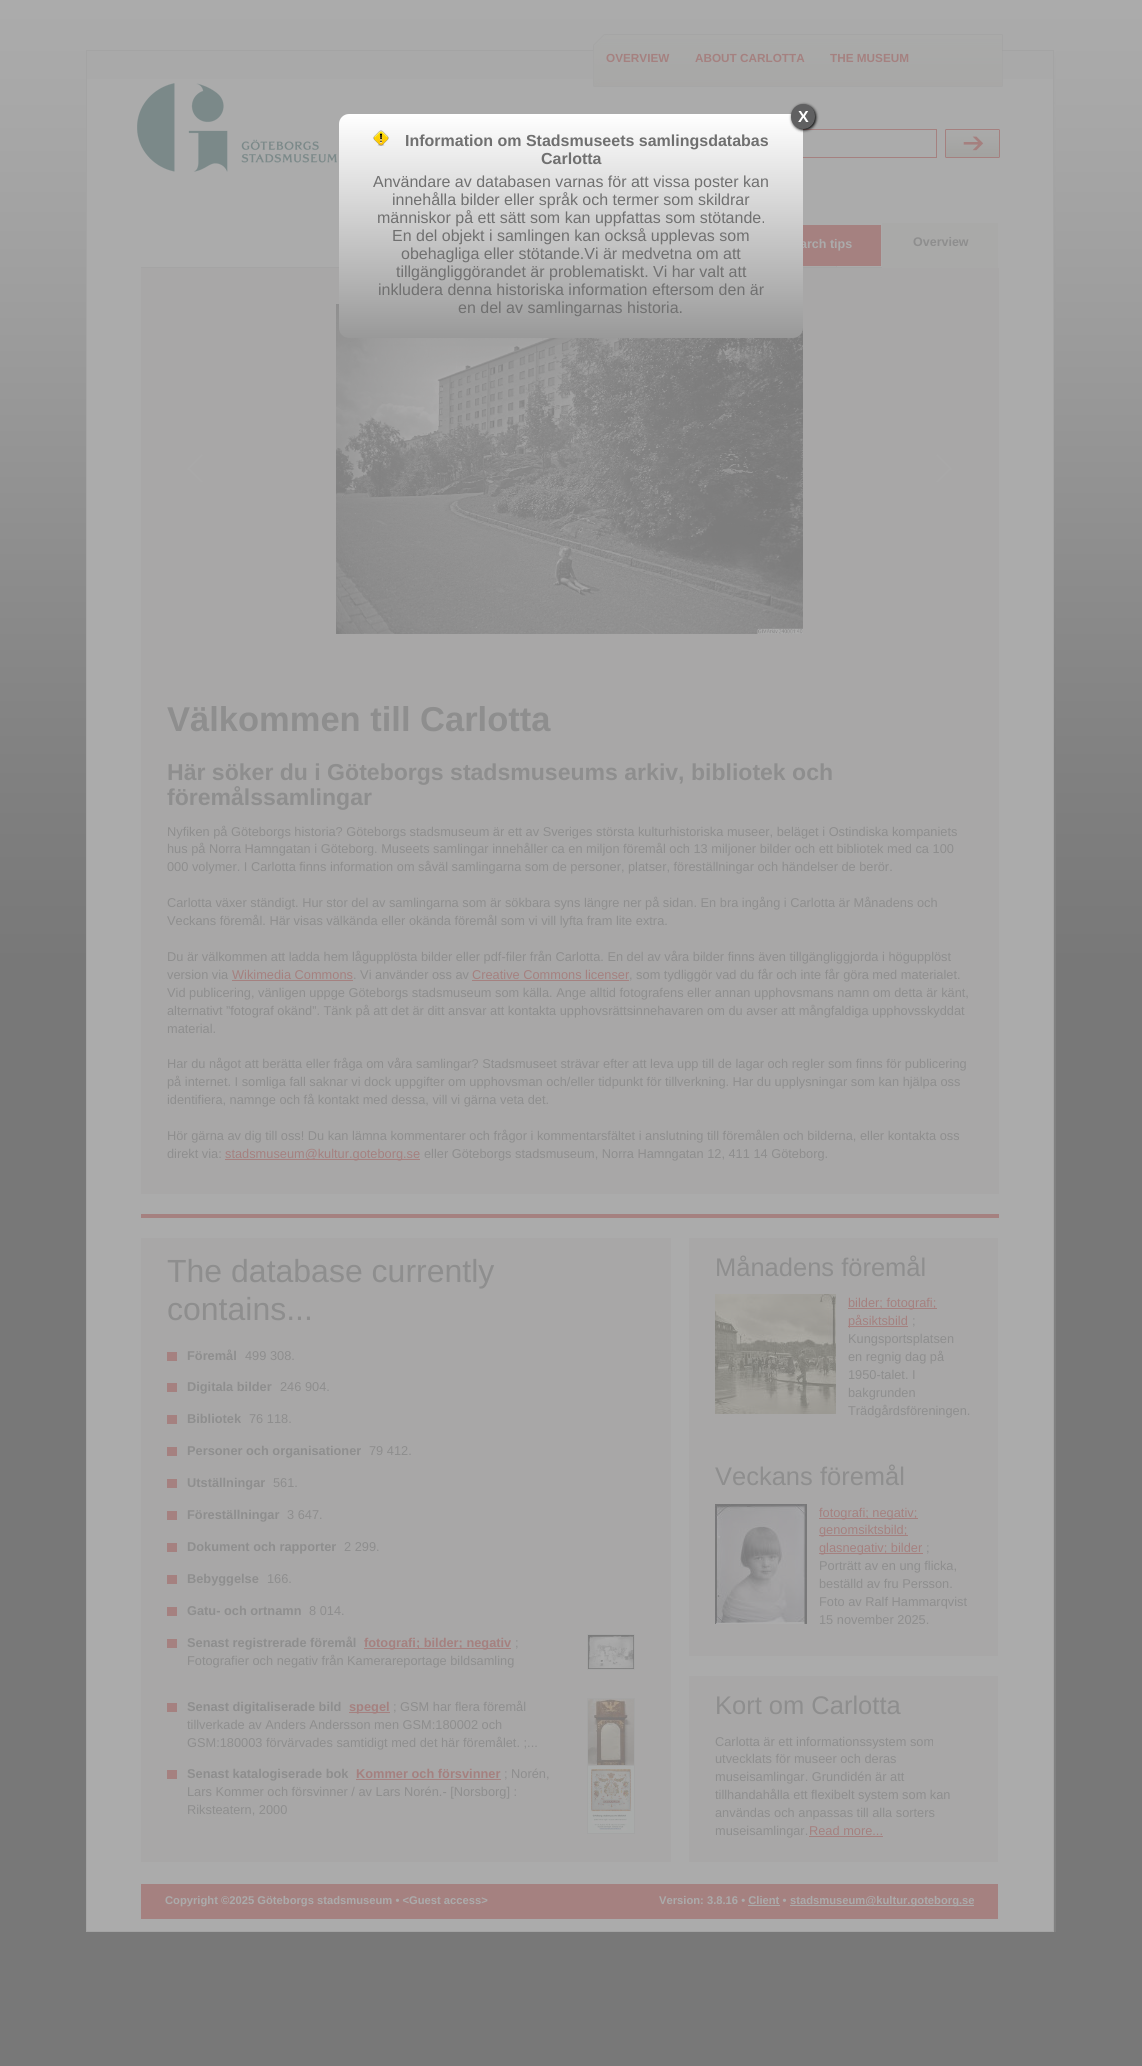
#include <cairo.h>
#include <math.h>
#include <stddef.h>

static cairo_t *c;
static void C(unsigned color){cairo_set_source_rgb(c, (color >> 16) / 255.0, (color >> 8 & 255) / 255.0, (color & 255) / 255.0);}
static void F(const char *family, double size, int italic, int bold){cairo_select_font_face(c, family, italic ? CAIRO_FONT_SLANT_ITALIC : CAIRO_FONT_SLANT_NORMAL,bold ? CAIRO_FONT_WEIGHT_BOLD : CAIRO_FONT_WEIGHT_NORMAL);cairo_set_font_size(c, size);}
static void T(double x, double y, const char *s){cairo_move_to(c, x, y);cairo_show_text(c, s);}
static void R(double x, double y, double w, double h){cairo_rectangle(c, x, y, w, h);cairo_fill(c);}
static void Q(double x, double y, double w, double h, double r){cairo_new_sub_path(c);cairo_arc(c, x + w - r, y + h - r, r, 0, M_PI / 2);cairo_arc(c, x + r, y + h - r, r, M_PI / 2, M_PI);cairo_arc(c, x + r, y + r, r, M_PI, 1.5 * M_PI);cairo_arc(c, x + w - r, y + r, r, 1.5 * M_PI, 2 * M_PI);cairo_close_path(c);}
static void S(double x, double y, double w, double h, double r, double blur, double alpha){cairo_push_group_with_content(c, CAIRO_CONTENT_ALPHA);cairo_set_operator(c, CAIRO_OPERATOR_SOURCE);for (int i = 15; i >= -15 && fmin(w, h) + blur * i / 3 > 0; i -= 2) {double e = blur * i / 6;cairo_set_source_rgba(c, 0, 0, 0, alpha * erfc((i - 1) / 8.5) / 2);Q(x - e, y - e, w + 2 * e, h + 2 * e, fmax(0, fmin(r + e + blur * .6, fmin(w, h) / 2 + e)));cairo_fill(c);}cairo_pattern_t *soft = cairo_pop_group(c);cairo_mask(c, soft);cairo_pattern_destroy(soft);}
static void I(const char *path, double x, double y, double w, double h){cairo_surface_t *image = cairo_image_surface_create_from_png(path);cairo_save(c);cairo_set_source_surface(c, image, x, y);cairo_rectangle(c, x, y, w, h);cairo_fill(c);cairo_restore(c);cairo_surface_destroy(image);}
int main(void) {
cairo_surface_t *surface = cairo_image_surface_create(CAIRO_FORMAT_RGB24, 1142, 2066);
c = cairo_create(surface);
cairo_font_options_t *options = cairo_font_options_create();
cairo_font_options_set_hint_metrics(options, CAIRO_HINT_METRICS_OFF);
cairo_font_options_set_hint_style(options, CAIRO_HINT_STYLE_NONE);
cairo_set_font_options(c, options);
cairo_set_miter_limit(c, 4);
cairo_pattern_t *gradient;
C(0x787878);
cairo_paint(c);
I("1.png",0,0,1142,953);
I("2.png",1054,50,2,1882);
C(0xababab);
R(87,79,966,1852);
cairo_rectangle(c,86.5,50.5,967,1881);
C(0xa4a4a4);
cairo_set_line_width(c,1);
cairo_stroke(c);
I("3.png",593,34,409,53);
I("4.png",1002,34,1,53);
F("Liberation Sans",11.75,0,1);
C(0xa58180);
T(606,62,"OVERVIEW");
T(695,62,"ABOUT CARLOTTA");
T(830,62,"THE MUSEUM");
I("5.png",137,83,200,89);
cairo_rectangle(c,702.5,129.5,234,28);
cairo_stroke(c);
I("6.png",945,129,55,29);
I("7.png",141,266,741,2);
R(803,225,78,41);
F("Liberation Sans",12.5,0,1);
C(0xababab);
T(800,248,"arch tips");
C(0xa9a9a8);
R(882,223,116,45);
C(0x8e8e8e);
T(913,246,"Overview");
C(0xa8a7a7);
R(141,268,858,926);
I("8.png",336,304,467,330);
I("9.png",187,454,16,28);
I("10.png",936,454,16,28);
F("Liberation Sans",34.5,0,1);
C(0x8e8e8e);
T(167,731,"Välkommen till Carlotta");
F("Liberation Sans",23.05,0,1);
T(167,780,"Här söker du i Göteborgs stadsmuseums arkiv, bibliotek och");
T(167,805,"föremålssamlingar");
F("Liberation Sans",12.8,0,0);
T(167,836,"Nyfiken på Göteborgs historia? Göteborgs stadsmuseum är ett av Sveriges största kulturhistoriska museer, beläget i Ostindiska kompaniets");
T(167,853,"hus på Norra Hamngatan i Göteborg. Museets samlingar innehåller ca en miljon föremål och 13 miljoner bilder och ett bibliotek med ca 100");
T(167,871,"000 volymer. I Carlotta finns information om såväl samlingarna som de personer, platser, föreställningar och händelser de berör.");
T(167,907,"Carlotta växer ständigt. Hur stor del av samlingarna som är sökbara syns längre ner på sidan. En bra ingång i Carlotta är Månadens och");
T(167,925,"Veckans föremål. Här visas välkända eller okända föremål som vi vill lyfta fram lite extra.");
T(167,961,"Du är välkommen att ladda hem lågupplösta bilder eller pdf-filer från Carlotta. En del av våra bilder finns även tillgängliggjorda i högupplöst");
T(167,979,"version via");
C(0xa58180);
T(232,979,"Wikimedia Commons");
R(232,980,121,1);
C(0x8e8e8e);
T(353,979,". Vi använder oss av");
C(0xa58180);
T(472,979,"Creative Commons licenser");
R(472,980,157,1);
C(0x8e8e8e);
T(629,979,", som tydliggör vad du får och inte får göra med materialet.");
T(167,997,"Vid publicering, vänligen uppge Göteborgs stadsmuseum som källa. Ange alltid fotografens eller annan upphovsmans namn om detta är känt,");
T(167,1015,"alternativt ”fotograf okänd”. Tänk på att det är ditt ansvar att kontakta upphovsrättsinnehavaren om du avser att mångfaldiga upphovsskyddat");
T(167,1033,"material.");
T(167,1068,"Har du något att berätta eller fråga om våra samlingar? Stadsmuseet strävar efter att leva upp till de lagar och regler som finns för publicering");
T(167,1086,"på internet. I somliga fall saknar vi dock uppgifter om upphovsman och/eller tidpunkt för tillverkning. Har du upplysningar som kan hjälpa oss");
T(167,1104,"identifiera, namnge och få kontakt med dessa, vill vi gärna veta det.");
T(167,1140,"Hör gärna av dig till oss! Du kan lämna kommentarer och frågor i kommentarsfältet i anslutning till föremålen och bilderna, eller kontakta oss");
T(167,1158,"direkt via:");
C(0xa58180);
R(225,1159,195,1);
T(225,1158,"stadsmuseum@kultur.goteborg.se");
C(0x8e8e8e);
T(424,1158,"eller Göteborgs stadsmuseum, Norra Hamngatan 12, 411 14 Göteborg.");
C(0xa58180);
R(141,1214,858,4);
I("11.png",141,1238,548,624);
F("Liberation Sans",32,0,0);
C(0x8e8e8e);
T(167,1282,"The database currently");
T(167,1320,"contains...");
C(0xa58180);
R(167,1352,10,9);
F("Liberation Sans",12.8,0,1);
C(0x8e8e8e);
T(187,1360,"Föremål");
F("Liberation Sans",12.8,0,0);
T(245,1360,"499 308.");
C(0xa58180);
R(167,1383,10,9);
F("Liberation Sans",12.8,0,1);
C(0x8e8e8e);
T(187,1391,"Digitala bilder");
F("Liberation Sans",12.8,0,0);
T(280,1391,"246 904.");
C(0xa58180);
R(167,1415,10,9);
F("Liberation Sans",12.8,0,1);
C(0x8e8e8e);
T(187,1423,"Bibliotek");
F("Liberation Sans",12.8,0,0);
T(249,1423,"76 118.");
C(0xa58180);
R(167,1447,10,9);
F("Liberation Sans",12.8,0,1);
C(0x8e8e8e);
T(187,1455,"Personer och organisationer");
F("Liberation Sans",12.8,0,0);
T(369,1455,"79 412.");
C(0xa58180);
R(167,1479,10,9);
F("Liberation Sans",12.8,0,1);
C(0x8e8e8e);
T(187,1487,"Utställningar");
F("Liberation Sans",12.8,0,0);
T(273,1487,"561.");
C(0xa58180);
R(167,1511,10,9);
F("Liberation Sans",12.8,0,1);
C(0x8e8e8e);
T(187,1519,"Föreställningar");
F("Liberation Sans",12.8,0,0);
T(287,1519,"3 647.");
C(0xa58180);
R(167,1543,10,9);
F("Liberation Sans",12.8,0,1);
C(0x8e8e8e);
T(187,1551,"Dokument och rapporter");
F("Liberation Sans",12.8,0,0);
T(344,1551,"2 299.");
C(0xa58180);
R(167,1575,10,9);
F("Liberation Sans",12.8,0,1);
C(0x8e8e8e);
T(187,1583,"Bebyggelse");
F("Liberation Sans",12.8,0,0);
T(267,1583,"166.");
C(0xa58180);
R(167,1607,10,9);
F("Liberation Sans",12.8,0,1);
C(0x8e8e8e);
T(187,1615,"Gatu- och ortnamn");
F("Liberation Sans",12.8,0,0);
T(309,1615,"8 014.");
C(0xa58180);
R(167,1639,10,9);
F("Liberation Sans",12.8,0,1);
C(0x8e8e8e);
T(187,1647,"Senast registrerade föremål");
C(0xa58180);
R(364,1648,147,1);
T(364,1647,"fotografi; bilder; negativ");
F("Liberation Sans",12.8,0,0);
C(0x8e8e8e);
T(515,1647,";");
cairo_rectangle(c,587.5,1634.5,47,35);
C(0xa4a4a4);
cairo_stroke(c);
I("12.png",588,1635,46,34);
C(0x8e8e8e);
T(187,1665,"Fotografier och negativ från Kamerareportage bildsamling");
C(0xa58180);
R(349,1712,41,1);
F("Liberation Sans",12.8,0,1);
T(349,1711,"spegel");
F("Liberation Sans",12.8,0,0);
C(0x8e8e8e);
T(393,1711,"; GSM har flera föremål");
cairo_rectangle(c,587.5,1698.5,47,72);
C(0xa4a4a4);
cairo_stroke(c);
I("13.png",588,1699,46,66);
C(0x8e8e8e);
T(187,1729,"tillverkade av Anders Andersson men GSM:180002 och");
T(187,1747,"GSM:180003 förvärvades samtidigt med det här föremålet. ;...");
C(0xa58180);
R(167,1703,10,9);
F("Liberation Sans",12.8,0,1);
C(0x8e8e8e);
T(187,1711,"Senast digitaliserade bild");
C(0xa58180);
R(167,1770,10,9);
C(0x8e8e8e);
T(187,1778,"Senast katalogiserade bok");
C(0xa58180);
T(356,1778,"Kommer och försvinner");
R(356,1779,145,1);
F("Liberation Sans",12.8,0,0);
C(0x8e8e8e);
T(504,1778,"; Norén,");
cairo_rectangle(c,587.5,1765.5,47,68);
C(0xa4a4a4);
cairo_stroke(c);
I("14.png",588,1766,46,67);
C(0x8e8e8e);
T(187,1796,"Lars Kommer och försvinner / av Lars Norén.- [Norsborg] :");
T(187,1814,"Riksteatern, 2000");
C(0xa8a7a7);
R(689,1238,309,418);
F("Liberation Sans",25.5,0,0);
C(0x8e8e8e);
T(715,1276,"Månadens föremål");
I("15.png",715,1294,121,120);
C(0xa58180);
R(848,1308,89,1);
F("Liberation Sans",12.8,0,0);
T(848,1307,"bilder; fotografi;");
R(848,1326,60,1);
T(848,1325,"påsiktsbild");
C(0x8e8e8e);
T(912,1325,";");
T(848,1343,"Kungsportsplatsen");
T(848,1361,"en regnig dag på");
T(848,1379,"1950-talet. I");
T(848,1397,"bakgrunden");
T(848,1415,"Trädgårdsföreningen.");
F("Liberation Sans",25.5,0,0);
T(715,1485,"Veckans föremål");
I("16.png",715,1504,92,120);
C(0xa58180);
R(819,1518,99,1);
F("Liberation Sans",12.8,0,0);
T(819,1517,"fotografi; negativ;");
R(819,1535,89,1);
T(819,1534,"genomsiktsbild;");
R(819,1553,104,1);
T(819,1552,"glasnegativ; bilder");
C(0x8e8e8e);
T(926,1552,";");
T(819,1570,"Porträtt av en ung flicka,");
T(819,1588,"beställd av fru Persson.");
T(819,1606,"Foto av Ralf Hammarqvist");
T(819,1624,"15 november 2025.");
C(0xa8a7a7);
R(689,1676,309,186);
F("Liberation Sans",25.5,0,0);
C(0x8e8e8e);
T(715,1714,"Kort om Carlotta");
F("Liberation Sans",12.8,0,0);
T(715,1746,"Carlotta är ett informationssystem som");
T(715,1763,"utvecklats för museer och deras");
T(715,1781,"museisamlingar. Grundidén är att");
T(715,1799,"tillhandahålla ett flexibelt system som kan");
T(715,1817,"användas och anpassas till alla sorters");
T(715,1835,"museisamlingar.");
C(0xa58180);
T(809,1835,"Read more...");
R(809,1836,74,1);
R(141,1884,857,35);
F("Liberation Sans",11.2,0,1);
C(0xababab);
T(165,1904,"Copyright ©2025 Göteborgs stadsmuseum • <Guest access>");
T(659,1904,"Version: 3.8.16 • Client •");
R(790,1905,184,1);
T(790,1904,"stadsmuseum@kultur.goteborg.se");
R(748,1905,32,1);
gradient = cairo_pattern_create_linear(571,114,571,338);
cairo_pattern_add_color_stop_rgba(gradient,0,1,1,1,1);
cairo_pattern_add_color_stop_rgba(gradient,1,0.6,0.6,0.6,1);
cairo_set_source(c,gradient);
cairo_pattern_destroy(gradient);
Q(339,114,464,224,10);
cairo_fill(c);
C(0x000000);
S(792,105,24,25,12,1.5,1);
C(0x606061);
Q(791,104,24,25,12);
cairo_fill(c);
F("Liberation Sans",16,0,1);
C(0xffffff);
T(798,122,"X");
I("17.png",373,130,16,16);
C(0x707070);
T(405,146,"Information om Stadsmuseets samlingsdatabas");
T(541,164,"Carlotta");
F("Liberation Sans",16,0,0);
T(373,187,"Användare av databasen varnas för att vissa poster kan");
T(392,205,"innehålla bilder eller språk och termer som skildrar");
T(377,223,"människor på ett sätt som kan uppfattas som stötande.");
T(392,241,"En del objekt i samlingen kan också upplevas som");
T(401,259,"obehagliga eller stötande.Vi är medvetna om att");
T(396,277,"tillgängliggörandet är problematiskt. Vi har valt att");
T(378,295,"inkludera denna historiska information eftersom den är");
T(458,313,"en del av samlingarnas historia.");
cairo_surface_write_to_png(surface, "o.png");
cairo_font_options_destroy(options);
cairo_destroy(c);
cairo_surface_destroy(surface);
return 0;
}
